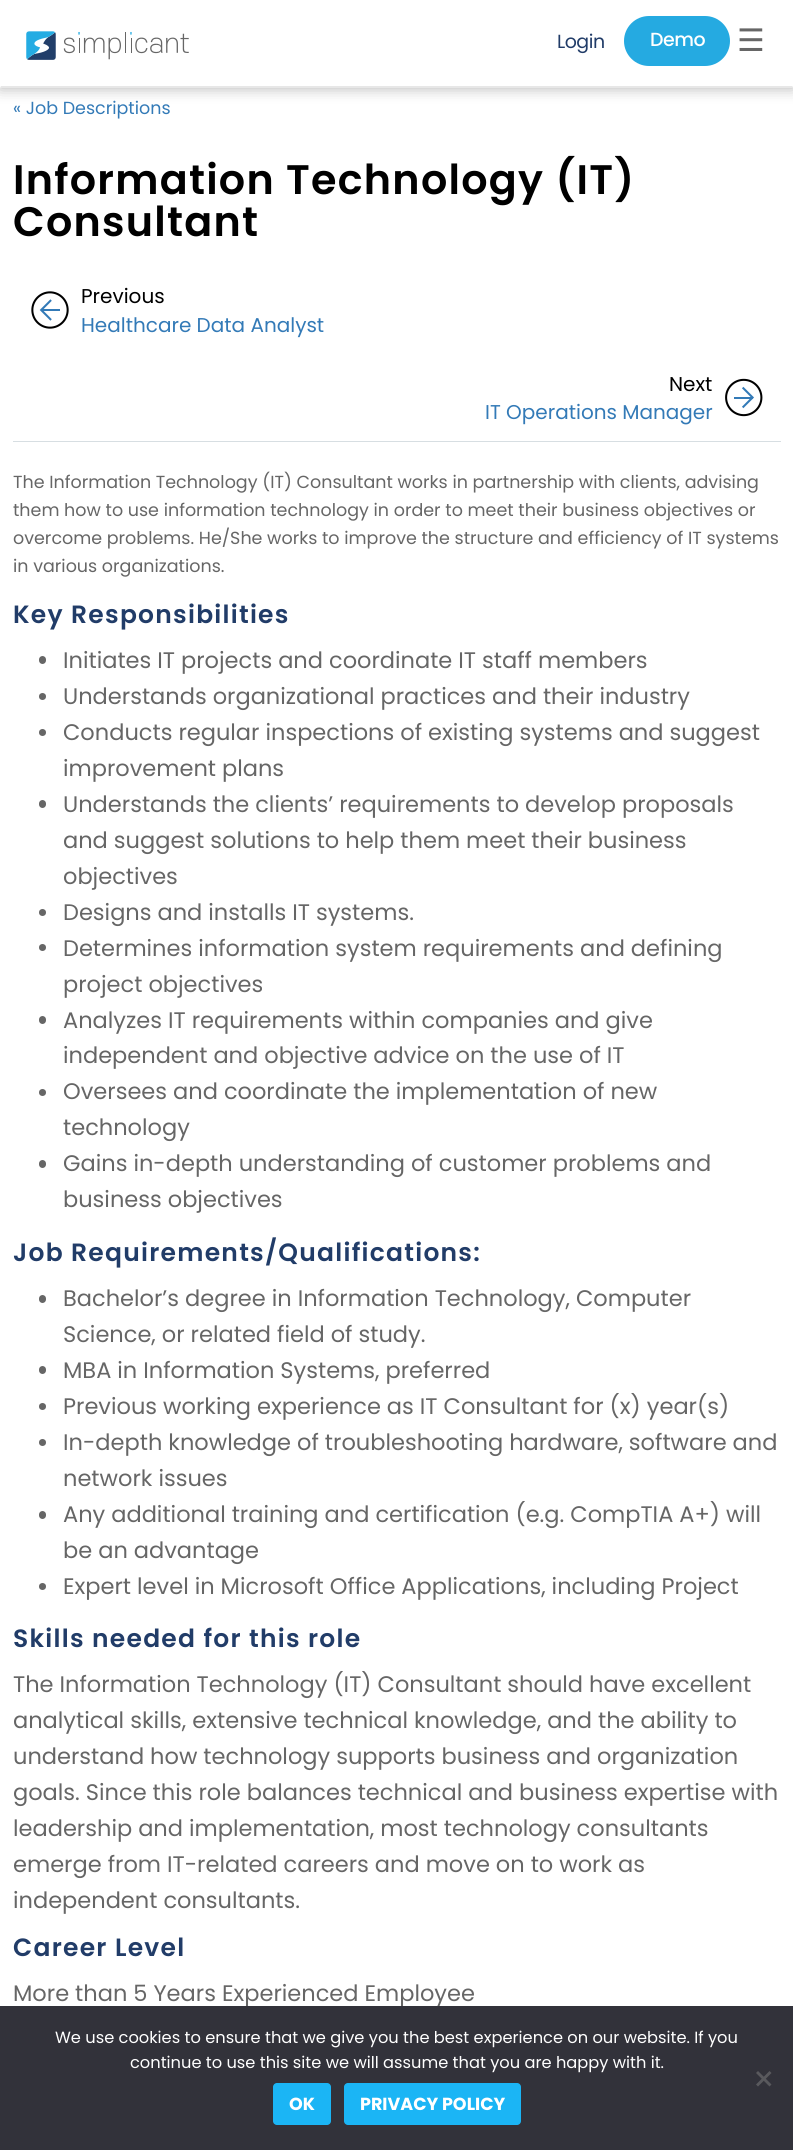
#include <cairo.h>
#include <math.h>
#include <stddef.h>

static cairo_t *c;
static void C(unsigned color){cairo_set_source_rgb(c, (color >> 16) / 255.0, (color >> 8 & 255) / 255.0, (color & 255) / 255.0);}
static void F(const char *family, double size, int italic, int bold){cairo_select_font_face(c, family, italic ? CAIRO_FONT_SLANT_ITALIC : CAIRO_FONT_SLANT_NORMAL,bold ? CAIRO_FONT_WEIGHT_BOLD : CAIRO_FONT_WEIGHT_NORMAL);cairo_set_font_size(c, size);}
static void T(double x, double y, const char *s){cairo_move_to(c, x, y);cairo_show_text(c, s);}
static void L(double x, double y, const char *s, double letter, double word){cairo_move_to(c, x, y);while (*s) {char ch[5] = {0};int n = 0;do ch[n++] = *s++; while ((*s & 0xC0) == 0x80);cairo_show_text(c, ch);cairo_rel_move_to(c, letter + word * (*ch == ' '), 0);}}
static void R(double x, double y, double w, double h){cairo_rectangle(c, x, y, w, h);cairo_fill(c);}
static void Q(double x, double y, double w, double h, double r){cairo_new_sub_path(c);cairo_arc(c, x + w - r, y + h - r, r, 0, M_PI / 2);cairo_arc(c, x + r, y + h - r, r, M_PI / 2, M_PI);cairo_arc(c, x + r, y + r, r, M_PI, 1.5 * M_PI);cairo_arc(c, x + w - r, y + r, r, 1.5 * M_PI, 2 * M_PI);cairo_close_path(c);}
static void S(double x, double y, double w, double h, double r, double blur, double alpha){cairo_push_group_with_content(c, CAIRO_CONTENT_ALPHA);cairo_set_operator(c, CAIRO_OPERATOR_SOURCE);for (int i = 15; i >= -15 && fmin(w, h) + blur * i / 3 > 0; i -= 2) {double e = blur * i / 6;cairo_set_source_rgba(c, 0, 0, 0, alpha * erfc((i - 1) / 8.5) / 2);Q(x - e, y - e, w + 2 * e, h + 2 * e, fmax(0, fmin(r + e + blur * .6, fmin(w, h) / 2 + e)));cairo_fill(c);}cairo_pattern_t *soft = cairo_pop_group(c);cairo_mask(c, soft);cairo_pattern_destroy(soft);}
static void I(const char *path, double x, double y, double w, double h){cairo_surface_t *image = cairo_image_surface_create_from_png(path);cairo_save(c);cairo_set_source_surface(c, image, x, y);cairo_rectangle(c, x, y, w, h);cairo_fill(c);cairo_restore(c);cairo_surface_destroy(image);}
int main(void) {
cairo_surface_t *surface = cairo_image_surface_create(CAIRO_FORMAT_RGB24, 793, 2150);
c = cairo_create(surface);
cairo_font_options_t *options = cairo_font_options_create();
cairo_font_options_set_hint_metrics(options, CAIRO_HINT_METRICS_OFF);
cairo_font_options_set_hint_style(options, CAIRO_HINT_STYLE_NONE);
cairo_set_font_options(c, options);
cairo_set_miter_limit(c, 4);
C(0xffffff);
cairo_paint(c);
C(0x000000);
S(0,0,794,88,0,7.5,.3);
C(0xffffff);
R(0,0,793,88);
C(0xe7e7e7);
cairo_new_path(c);
cairo_move_to(c,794,88);
cairo_line_to(c,0,88);
cairo_line_to(c,1,86);
cairo_line_to(c,792,86);
cairo_close_path(c);
cairo_fill(c);
I("1.png",26,31,163,29);
F("Poppins",19,0,0);
C(0x213c68);
L(557,48,"Login",-.5,0);
C(0x25aae1);
Q(624,16,106,50,25);
cairo_fill(c);
F("Poppins Medium",19,0,0);
C(0xffffff);
L(650,46,"Demo",-.5,0);
F("DejaVu Sans",31,0,0);
C(0x666666);
T(737,51,"☰");
F("Poppins",17.5,0,0);
C(0x337ab7);
T(13,114,"« Job Descriptions");
F("Poppins SemiBold",41.25,0,0);
C(0x000000);
L(13,194,"Information Technology (IT)",1.25,0);
L(13,236,"Consultant",1.25,0);
C(0xd7dee2);
R(13,441,768,1);
I("2.png",31,291,38,38);
F("Poppins",20,0,0);
C(0x000000);
T(81,303,"Previous");
C(0x337ab7);
T(81,332,"Healthcare Data Analyst");
I("3.png",725,378,38,39);
C(0x000000);
T(669,391,"Next");
C(0x337ab7);
T(485,419,"IT Operations Manager");
F("Poppins",17.5,0,0);
C(0x666666);
T(13,488,"The Information Technology (IT) Consultant works in partnership with clients, advising");
T(13,516,"them how to use information technology in order to meet their business objectives or");
T(13,544,"overcome problems. He/She works to improve the structure and efficiency of IT systems");
T(13,572,"in various organizations.");
F("Poppins SemiBold",25,0,0);
C(0x213c68);
L(13,623,"Key Responsibilities",1.25,0);
C(0x666666);
Q(39,656,7,8,3.5);
cairo_fill(c);
F("Poppins",22.5,0,0);
T(63,668,"Initiates IT projects and coordinate IT staff members");
cairo_new_path(c);
cairo_arc(c,42.5,696.5,3.5,0,2 * M_PI);
cairo_fill(c);
T(63,704,"Understands organizational practices and their industry");
cairo_new_path(c);
cairo_arc(c,42.5,732.5,3.5,0,2 * M_PI);
cairo_fill(c);
T(63,740,"Conducts regular inspections of existing systems and suggest");
T(63,776,"improvement plans");
Q(39,800,7,8,3.5);
cairo_fill(c);
T(63,812,"Understands the clients’ requirements to develop proposals");
T(63,848,"and suggest solutions to help them meet their business");
T(63,884,"objectives");
cairo_new_path(c);
cairo_arc(c,42.5,912.5,3.5,0,2 * M_PI);
cairo_fill(c);
T(63,920,"Designs and installs IT systems.");
cairo_new_path(c);
cairo_arc(c,42.5,947.5,3.5,0,2 * M_PI);
cairo_fill(c);
T(63,956,"Determines information system requirements and defining");
T(63,992,"project objectives");
Q(39,1016,7,8,3.5);
cairo_fill(c);
T(63,1028,"Analyzes IT requirements within companies and give");
T(63,1063,"independent and objective advice on the use of IT");
cairo_new_path(c);
cairo_arc(c,42.5,1092.5,3.5,0,2 * M_PI);
cairo_fill(c);
T(63,1099,"Oversees and coordinate the implementation of new");
T(63,1135,"technology");
Q(39,1160,7,8,3.5);
cairo_fill(c);
T(63,1171,"Gains in-depth understanding of customer problems and");
T(63,1207,"business objectives");
F("Poppins SemiBold",25,0,0);
C(0x213c68);
L(13,1261,"Job Requirements/Qualifications:",1.25,0);
C(0x666666);
Q(39,1295,7,8,3.5);
cairo_fill(c);
F("Poppins",22.5,0,0);
T(63,1306,"Bachelor’s degree in Information Technology, Computer");
T(63,1342,"Science, or related field of study.");
Q(39,1366,7,8,3.5);
cairo_fill(c);
T(63,1378,"MBA in Information Systems, preferred");
cairo_new_path(c);
cairo_arc(c,42.5,1406.5,3.5,0,2 * M_PI);
cairo_fill(c);
T(63,1414,"Previous working experience as IT Consultant for (x) year(s)");
cairo_new_path(c);
cairo_arc(c,42.5,1442.5,3.5,0,2 * M_PI);
cairo_fill(c);
T(63,1450,"In-depth knowledge of troubleshooting hardware, software and");
T(63,1486,"network issues");
Q(39,1511,7,8,3.5);
cairo_fill(c);
T(63,1522,"Any additional training and certification (e.g. CompTIA A+) will");
T(63,1558,"be an advantage");
cairo_new_path(c);
cairo_arc(c,42.5,1586.5,3.5,0,2 * M_PI);
cairo_fill(c);
T(63,1594,"Expert level in Microsoft Office Applications, including Project");
F("Poppins SemiBold",25,0,0);
C(0x213c68);
L(13,1647,"Skills needed for this role",1.25,0);
F("Poppins",22.5,0,0);
C(0x666666);
T(13,1692,"The Information Technology (IT) Consultant should have excellent");
T(13,1728,"analytical skills, extensive technical knowledge, and the ability to");
T(13,1764,"understand how technology supports business and organization");
T(13,1800,"goals. Since this role balances technical and business expertise with");
T(13,1836,"leadership and implementation, most technology consultants");
T(13,1872,"emerge from IT-related careers and move on to work as");
T(13,1908,"independent consultants.");
F("Poppins SemiBold",25,0,0);
C(0x213c68);
L(13,1956,"Career Level",1.25,0);
F("Poppins",22.5,0,0);
C(0x666666);
T(13,2001,"More than 5 Years Experienced Employee");
C(0x32323a);
R(0,2006,793,144);
F("Poppins",16.25,0,0);
C(0xffffff);
T(55,2043,"We use cookies to ensure that we give you the best experience on our website. If you");
T(130,2068,"continue to use this site we will assume that you are happy with it.");
C(0x59595d);
cairo_new_path(c);
cairo_move_to(c,769.5,2071);
cairo_line_to(c,771.5,2073);
cairo_line_to(c,758,2086.5);
cairo_line_to(c,756,2084.5);
cairo_close_path(c);
cairo_fill(c);
cairo_new_path(c);
cairo_move_to(c,756,2073);
cairo_line_to(c,758,2071);
cairo_line_to(c,771.5,2084.5);
cairo_line_to(c,769.5,2086.5);
cairo_close_path(c);
cairo_fill(c);
C(0x1bb5f5);
Q(273,2083,58,42,4);
cairo_fill(c);
F("Poppins",17.5,0,1);
C(0xffffff);
T(289,2110,"OK");
C(0x1bb5f5);
Q(344,2083,177,42,4);
cairo_fill(c);
C(0xffffff);
T(360,2110,"PRIVACY POLICY");
cairo_surface_write_to_png(surface, "o.png");
cairo_font_options_destroy(options);
cairo_destroy(c);
cairo_surface_destroy(surface);
return 0;
}
